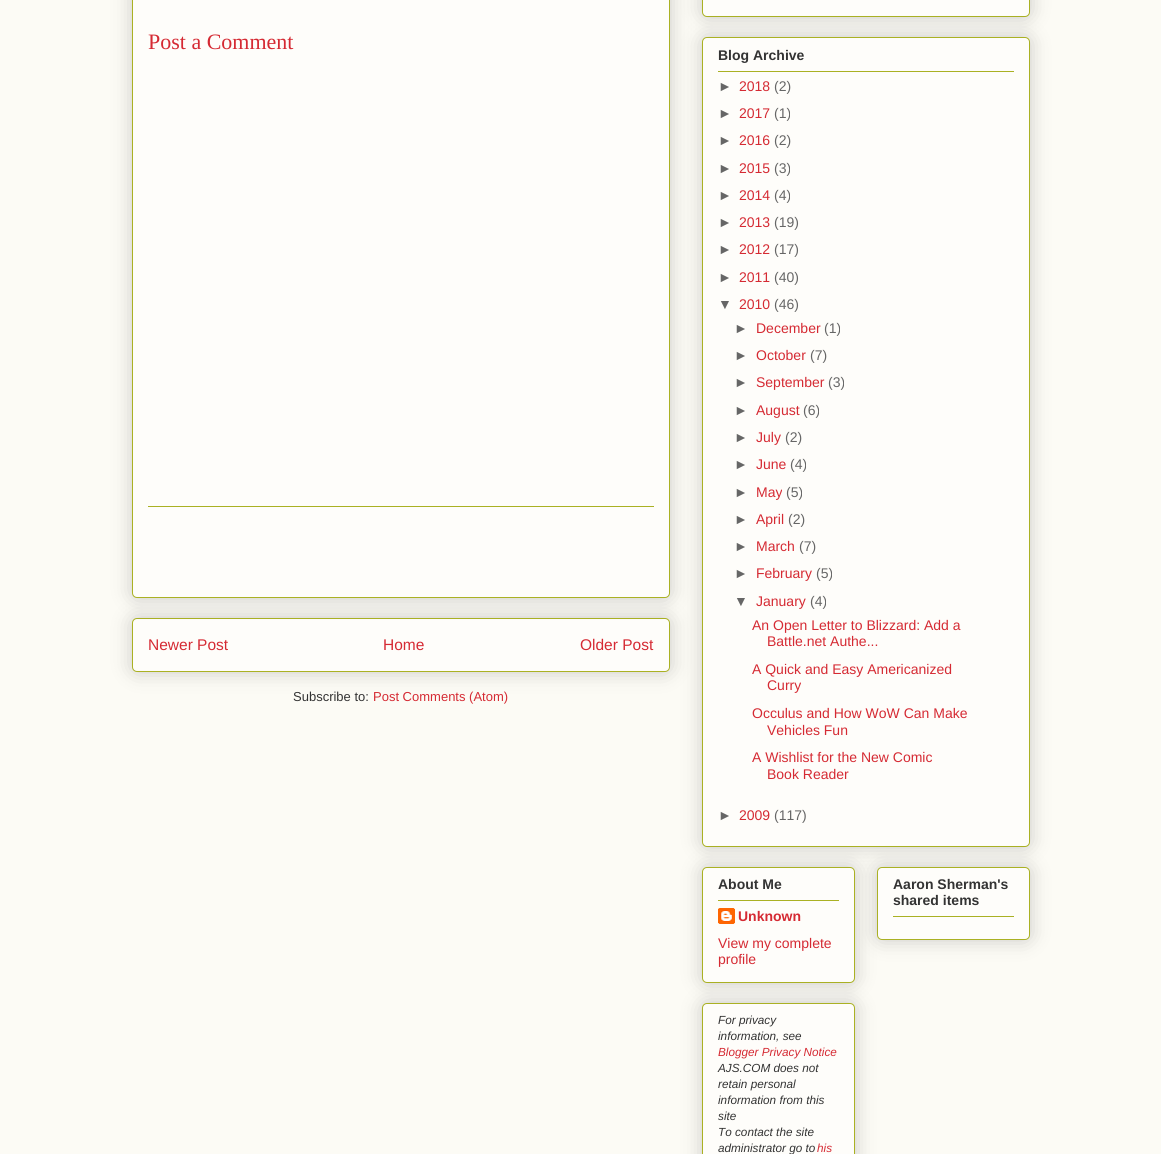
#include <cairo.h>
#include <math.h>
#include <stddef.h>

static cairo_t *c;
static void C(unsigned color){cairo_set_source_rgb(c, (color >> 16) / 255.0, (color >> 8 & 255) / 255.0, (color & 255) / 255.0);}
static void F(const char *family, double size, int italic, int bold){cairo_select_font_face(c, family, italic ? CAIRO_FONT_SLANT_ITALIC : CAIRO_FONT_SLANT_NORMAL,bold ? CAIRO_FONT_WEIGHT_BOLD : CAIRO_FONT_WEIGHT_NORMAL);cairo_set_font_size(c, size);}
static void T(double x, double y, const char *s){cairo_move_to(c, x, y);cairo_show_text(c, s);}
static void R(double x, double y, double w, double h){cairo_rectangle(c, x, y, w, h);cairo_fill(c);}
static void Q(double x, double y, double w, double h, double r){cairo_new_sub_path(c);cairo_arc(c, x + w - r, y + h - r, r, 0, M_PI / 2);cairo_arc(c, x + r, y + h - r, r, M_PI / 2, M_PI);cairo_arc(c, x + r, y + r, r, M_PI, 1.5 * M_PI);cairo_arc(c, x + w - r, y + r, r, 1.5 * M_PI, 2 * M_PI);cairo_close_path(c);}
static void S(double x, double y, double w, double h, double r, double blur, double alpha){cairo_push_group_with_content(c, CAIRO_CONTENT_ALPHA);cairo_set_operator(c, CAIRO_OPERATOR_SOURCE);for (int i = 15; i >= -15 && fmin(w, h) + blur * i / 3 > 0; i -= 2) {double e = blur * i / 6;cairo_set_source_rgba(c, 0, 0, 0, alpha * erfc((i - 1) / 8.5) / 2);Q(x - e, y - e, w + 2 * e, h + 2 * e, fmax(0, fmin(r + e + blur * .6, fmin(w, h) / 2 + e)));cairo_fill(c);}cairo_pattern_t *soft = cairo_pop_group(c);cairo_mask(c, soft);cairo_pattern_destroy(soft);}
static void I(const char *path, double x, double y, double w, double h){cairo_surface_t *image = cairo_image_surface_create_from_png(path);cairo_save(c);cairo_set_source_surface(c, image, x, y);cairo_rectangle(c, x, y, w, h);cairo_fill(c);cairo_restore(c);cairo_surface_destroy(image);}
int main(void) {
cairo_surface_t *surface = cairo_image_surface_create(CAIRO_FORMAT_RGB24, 1161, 1154);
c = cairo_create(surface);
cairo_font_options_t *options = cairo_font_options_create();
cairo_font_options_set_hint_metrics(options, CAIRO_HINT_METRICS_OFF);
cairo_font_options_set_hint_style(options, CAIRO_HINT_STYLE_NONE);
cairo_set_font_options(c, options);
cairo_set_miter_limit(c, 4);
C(0xfcfbf5);
cairo_paint(c);
C(0x000000);
S(132,618,538,54,5,10,.2);
C(0xfefdfa);
Q(132.5,618.5,537,53,4.5);
cairo_fill_preserve(c);
C(0xaab123);
cairo_set_line_width(c,1);
cairo_stroke(c);
C(0x000000);
S(132,-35,538,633,5,10,.2);
C(0xfefdfa);
Q(132.5,-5.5,537,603,4.5);
cairo_fill_preserve(c);
C(0xaab123);
cairo_stroke(c);
F("Liberation Serif",22,0,0);
C(0xd52a33);
T(148,49,"Post a Comment");
C(0xaab123);
R(148,506,506,1);
F("Liberation Sans",15.5,0,0);
C(0xd52a33);
T(148,650,"Newer Post");
T(383,650,"Home");
T(580,650,"Older Post");
F("Liberation Sans",13,0,0);
C(0x333333);
T(293,701,"Subscribe to:");
C(0xd52a33);
T(373,701,"Post Comments (Atom)");
C(0x000000);
S(702,-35,328,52,5,10,.2);
C(0xfefdfa);
Q(702.5,-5.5,327,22,4.5);
cairo_fill_preserve(c);
C(0xaab123);
cairo_stroke(c);
C(0x000000);
S(702,37,328,810,5,10,.2);
C(0xfefdfa);
Q(702.5,37.5,327,809,4.5);
cairo_fill_preserve(c);
C(0xaab123);
cairo_stroke(c);
F("Liberation Sans",14,0,1);
C(0x333333);
T(718,60,"Blog Archive");
C(0xaab123);
R(718,71,296,1);
F("Liberation Sans",14,0,0);
C(0x666666);
T(718,91,"►");
C(0xd52a33);
T(739,91,"2018");
C(0x666666);
T(774,91,"(2)");
T(718,118,"►");
C(0xd52a33);
T(739,118,"2017");
C(0x666666);
T(774,118,"(1)");
T(718,145,"►");
C(0xd52a33);
T(739,145,"2016");
C(0x666666);
T(774,145,"(2)");
T(718,173,"►");
C(0xd52a33);
T(739,173,"2015");
C(0x666666);
T(774,173,"(3)");
T(718,200,"►");
C(0xd52a33);
T(739,200,"2014");
C(0x666666);
T(774,200,"(4)");
T(718,227,"►");
C(0xd52a33);
T(739,227,"2013");
C(0x666666);
T(774,227,"(19)");
T(718,254,"►");
C(0xd52a33);
T(739,254,"2012");
C(0x666666);
T(774,254,"(17)");
T(718,282,"►");
C(0xd52a33);
T(739,282,"2011");
C(0x666666);
T(774,282,"(40)");
T(718,309,"▼");
C(0xd52a33);
T(739,309,"2010");
C(0x666666);
T(774,309,"(46)");
T(734,333,"►");
C(0xd52a33);
T(756,333,"December");
C(0x666666);
T(824,333,"(1)");
T(734,360,"►");
C(0xd52a33);
T(756,360,"October");
C(0x666666);
T(810,360,"(7)");
T(734,387,"►");
C(0xd52a33);
T(756,387,"September");
C(0x666666);
T(828,387,"(3)");
T(734,415,"►");
C(0xd52a33);
T(756,415,"August");
C(0x666666);
T(803,415,"(6)");
T(734,442,"►");
C(0xd52a33);
T(756,442,"July");
C(0x666666);
T(785,442,"(2)");
T(734,469,"►");
C(0xd52a33);
T(756,469,"June");
C(0x666666);
T(790,469,"(4)");
T(734,497,"►");
C(0xd52a33);
T(756,497,"May");
C(0x666666);
T(786,497,"(5)");
T(734,524,"►");
C(0xd52a33);
T(756,524,"April");
C(0x666666);
T(788,524,"(2)");
T(734,551,"►");
C(0xd52a33);
T(756,551,"March");
C(0x666666);
T(799,551,"(7)");
T(734,578,"►");
C(0xd52a33);
T(756,578,"February");
C(0x666666);
T(816,578,"(5)");
T(734,606,"▼");
C(0xd52a33);
T(756,606,"January");
C(0x666666);
T(810,606,"(4)");
C(0xd52a33);
T(752,630,"An Open Letter to Blizzard: Add a");
T(767,646,"Battle.net Authe...");
T(752,674,"A Quick and Easy Americanized");
T(767,690,"Curry");
T(752,718,"Occulus and How WoW Can Make");
T(767,735,"Vehicles Fun");
T(752,762,"A Wishlist for the New Comic");
T(767,779,"Book Reader");
C(0x666666);
T(718,820,"►");
C(0xd52a33);
T(739,820,"2009");
C(0x666666);
T(774,820,"(117)");
C(0x000000);
S(702,867,153,116,5,10,.2);
C(0xfefdfa);
Q(702.5,867.5,152,115,4.5);
cairo_fill_preserve(c);
C(0xaab123);
cairo_stroke(c);
F("Liberation Sans",14,0,1);
C(0x333333);
T(718,889,"About Me");
C(0xaab123);
R(718,900,121,1);
I("1.png",718,908,17,16);
C(0xd52a33);
T(738,921,"Unknown");
F("Liberation Sans",14,0,0);
T(718,948,"View my complete");
T(718,964,"profile");
C(0x000000);
S(702,1003,153,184,5,10,.2);
C(0xfefdfa);
Q(702.5,1003.5,152,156,4.5);
cairo_fill_preserve(c);
C(0xaab123);
cairo_stroke(c);
F("Liberation Sans",11.75,1,0);
C(0x333333);
T(718,1024,"For privacy");
T(718,1040,"information, see");
C(0xd52a33);
T(718,1056,"Blogger Privacy Notice");
C(0x333333);
T(718,1072,"AJS.COM does not");
T(718,1088,"retain personal");
T(718,1104,"information from this");
T(718,1120,"site");
T(718,1136,"To contact the site");
T(718,1152,"administrator go to");
C(0xd52a33);
T(817,1152,"his");
C(0x000000);
S(877,867,153,73,5,10,.2);
C(0xfefdfa);
Q(877.5,867.5,152,72,4.5);
cairo_fill_preserve(c);
C(0xaab123);
cairo_stroke(c);
F("Liberation Sans",14,0,1);
C(0x333333);
T(893,889,"Aaron Sherman's");
T(893,905,"shared items");
C(0xaab123);
R(893,916,121,1);
cairo_surface_write_to_png(surface, "o.png");
cairo_font_options_destroy(options);
cairo_destroy(c);
cairo_surface_destroy(surface);
return 0;
}
